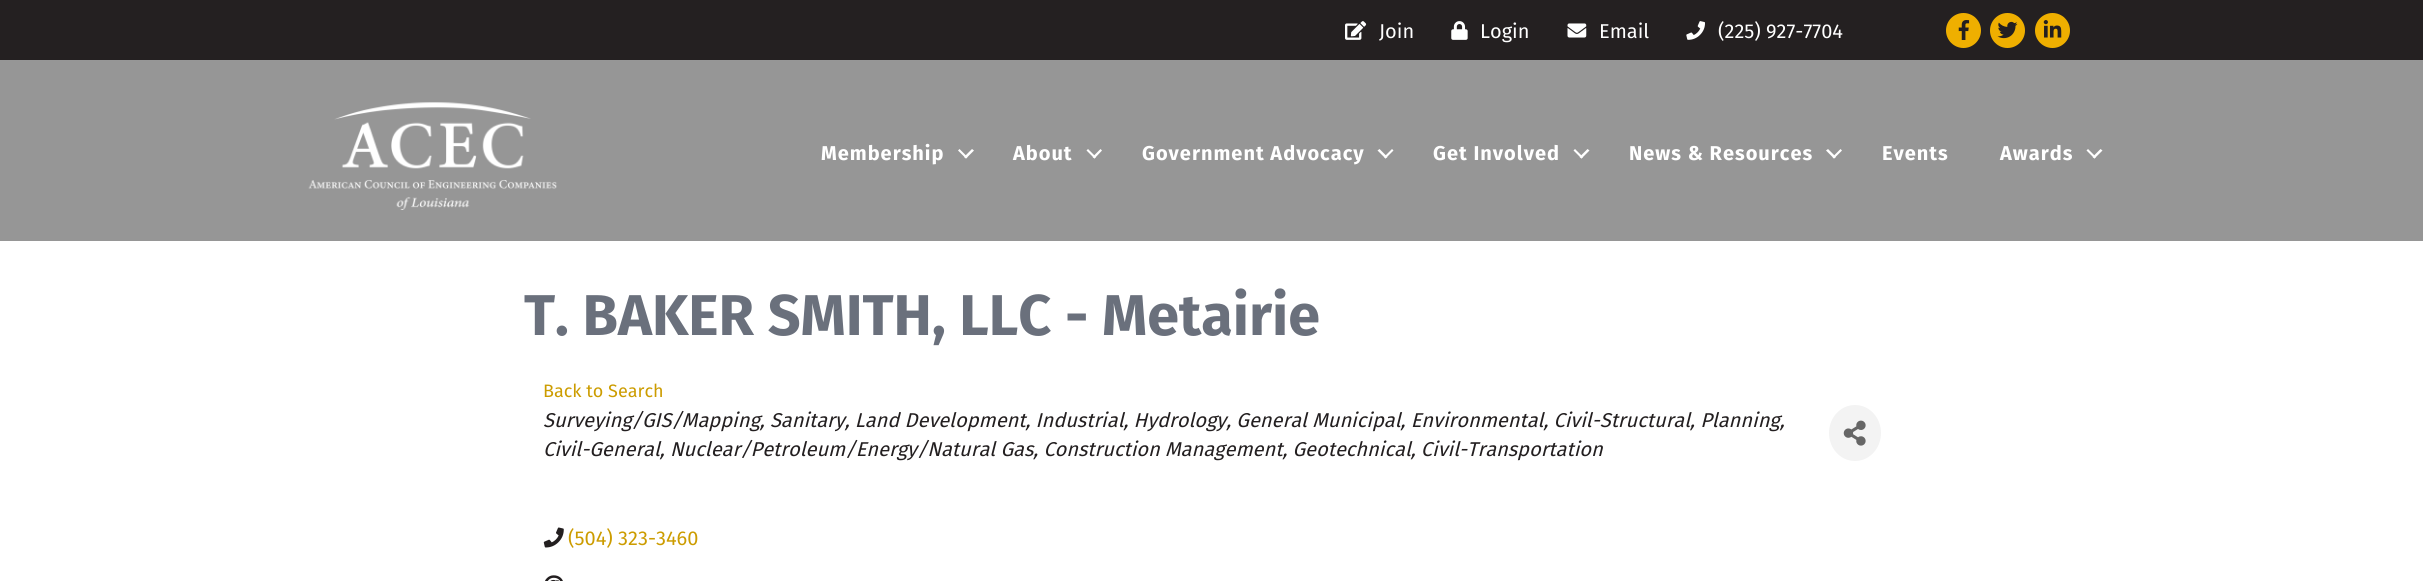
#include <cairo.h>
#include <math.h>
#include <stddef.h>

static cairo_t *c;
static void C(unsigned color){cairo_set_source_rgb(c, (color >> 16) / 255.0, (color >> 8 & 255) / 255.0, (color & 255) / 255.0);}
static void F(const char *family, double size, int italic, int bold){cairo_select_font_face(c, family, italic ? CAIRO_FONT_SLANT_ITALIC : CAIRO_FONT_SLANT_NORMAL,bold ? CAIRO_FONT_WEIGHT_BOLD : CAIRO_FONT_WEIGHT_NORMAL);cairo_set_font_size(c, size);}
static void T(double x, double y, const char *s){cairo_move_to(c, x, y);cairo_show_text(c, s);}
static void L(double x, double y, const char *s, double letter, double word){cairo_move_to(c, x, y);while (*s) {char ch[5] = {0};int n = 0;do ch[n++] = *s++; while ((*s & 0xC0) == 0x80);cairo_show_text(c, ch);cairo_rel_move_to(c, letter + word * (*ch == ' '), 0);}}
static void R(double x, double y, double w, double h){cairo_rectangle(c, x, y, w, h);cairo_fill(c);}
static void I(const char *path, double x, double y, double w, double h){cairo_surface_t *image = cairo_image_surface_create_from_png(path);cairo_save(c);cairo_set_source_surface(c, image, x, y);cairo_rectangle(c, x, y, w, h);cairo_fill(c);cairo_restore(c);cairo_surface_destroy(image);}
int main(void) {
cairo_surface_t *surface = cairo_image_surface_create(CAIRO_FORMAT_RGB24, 2423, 581);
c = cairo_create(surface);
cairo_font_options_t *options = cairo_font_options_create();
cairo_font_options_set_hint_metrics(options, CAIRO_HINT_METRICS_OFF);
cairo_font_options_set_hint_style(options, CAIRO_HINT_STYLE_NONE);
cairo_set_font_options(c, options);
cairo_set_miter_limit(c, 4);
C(0x242021);
cairo_paint(c);
I("1.png",1345,21,22,19);
F("Fira Sans",20,0,0);
C(0xffffff);
T(1379,38,"Join");
I("2.png",1451,21,17,19);
T(1480,38,"Login");
I("3.png",1567,23,20,15);
T(1599,38,"Email");
I("4.png",1686,21,19,19);
T(1718,38,"(225) 927-7704");
C(0xefaf00);
cairo_new_path(c);
cairo_arc(c,1963.5,30.5,17.5,0,2 * M_PI);
cairo_fill(c);
I("5.png",1958,20,12,20);
cairo_arc(c,2007.5,30.5,17.5,0,2 * M_PI);
cairo_fill(c);
I("6.png",1997,21,21,18);
cairo_arc(c,2052.5,30.5,17.5,0,2 * M_PI);
cairo_fill(c);
I("7.png",2043,20,19,18);
C(0x969696);
R(0,60,2423,181);
I("8.png",308,102,249,108);
F("Fira Sans",20,0,1);
C(0xffffff);
L(821,160,"Membership",1,0);
cairo_new_path(c);
cairo_move_to(c,972,149);
cairo_line_to(c,974,150.5);
cairo_line_to(c,966,158.5);
cairo_line_to(c,964,157);
cairo_close_path(c);
cairo_fill(c);
cairo_new_path(c);
cairo_move_to(c,959.5,149);
cairo_line_to(c,967.5,157);
cairo_line_to(c,966,158.5);
cairo_line_to(c,958,150.5);
cairo_close_path(c);
cairo_fill(c);
L(1013,160,"About",1,0);
cairo_new_path(c);
cairo_move_to(c,1100.5,149);
cairo_line_to(c,1102,150.5);
cairo_line_to(c,1094.5,158.5);
cairo_line_to(c,1092.5,157);
cairo_close_path(c);
cairo_fill(c);
cairo_new_path(c);
cairo_move_to(c,1088,149);
cairo_line_to(c,1096,157);
cairo_line_to(c,1094.5,158.5);
cairo_line_to(c,1086.5,150.5);
cairo_close_path(c);
cairo_fill(c);
L(1142,160,"Government Advocacy",1,0);
cairo_new_path(c);
cairo_move_to(c,1392,149);
cairo_line_to(c,1393.5,150.5);
cairo_line_to(c,1385.5,158.5);
cairo_line_to(c,1384,157);
cairo_close_path(c);
cairo_fill(c);
cairo_new_path(c);
cairo_move_to(c,1379.5,149);
cairo_line_to(c,1387.5,157);
cairo_line_to(c,1385.5,158.5);
cairo_line_to(c,1377.5,150.5);
cairo_close_path(c);
cairo_fill(c);
L(1433,160,"Get Involved",1,0);
cairo_new_path(c);
cairo_move_to(c,1587.5,149);
cairo_line_to(c,1589.5,150.5);
cairo_line_to(c,1581.5,158.5);
cairo_line_to(c,1579.5,157);
cairo_close_path(c);
cairo_fill(c);
cairo_new_path(c);
cairo_move_to(c,1575,149);
cairo_line_to(c,1583,157);
cairo_line_to(c,1581.5,158.5);
cairo_line_to(c,1573.5,150.5);
cairo_close_path(c);
cairo_fill(c);
L(1629,160,"News & Resources",1,0);
cairo_new_path(c);
cairo_move_to(c,1840.5,149);
cairo_line_to(c,1842,150.5);
cairo_line_to(c,1834,158.5);
cairo_line_to(c,1832.5,157);
cairo_close_path(c);
cairo_fill(c);
cairo_new_path(c);
cairo_move_to(c,1828,149);
cairo_line_to(c,1836,157);
cairo_line_to(c,1834,158.5);
cairo_line_to(c,1826,150.5);
cairo_close_path(c);
cairo_fill(c);
L(1882,160,"Events",1,0);
L(2000,160,"Awards",1,0);
cairo_new_path(c);
cairo_move_to(c,2100.5,149);
cairo_line_to(c,2102.5,150.5);
cairo_line_to(c,2094.5,158.5);
cairo_line_to(c,2092.5,157);
cairo_close_path(c);
cairo_fill(c);
cairo_new_path(c);
cairo_move_to(c,2088,149);
cairo_line_to(c,2096,157);
cairo_line_to(c,2094.5,158.5);
cairo_line_to(c,2086.5,150.5);
cairo_close_path(c);
cairo_fill(c);
R(0,241,2423,340);
F("Fira Sans",57.5,0,1);
C(0x6a707c);
T(524,335,"T. BAKER SMITH, LLC - Metairie");
F("Fira Sans",18,0,0);
C(0xcc9c00);
T(543,397,"Back to Search");
F("Fira Sans",20,1,0);
C(0x231f20);
T(543,427,"Surveying/GIS/Mapping, Sanitary, Land Development, Industrial, Hydrology, General Municipal, Environmental, Civil-Structural, Planning,");
T(543,456,"Civil-General, Nuclear/Petroleum/Energy/Natural Gas, Construction Management, Geotechnical, Civil-Transportation");
C(0xf3f3f3);
cairo_new_path(c);
cairo_move_to(c,1855,405);
cairo_curve_to(c,1869.5,405,1881,417.5,1881,433);
cairo_curve_to(c,1881,448.5,1869.5,461,1855,461);
cairo_curve_to(c,1840.5,461,1829,448.5,1829,433);
cairo_curve_to(c,1829,417.5,1840.5,405,1855,405);
cairo_close_path(c);
cairo_fill(c);
I("9.png",1843,420,23,26);
I("10.png",543,527,21,21);
F("Fira Sans",20,0,0);
C(0xcc9c00);
T(568,545,"(504) 323-3460");
I("11.png",545,575,18,6);
cairo_surface_write_to_png(surface, "o.png");
cairo_font_options_destroy(options);
cairo_destroy(c);
cairo_surface_destroy(surface);
return 0;
}
